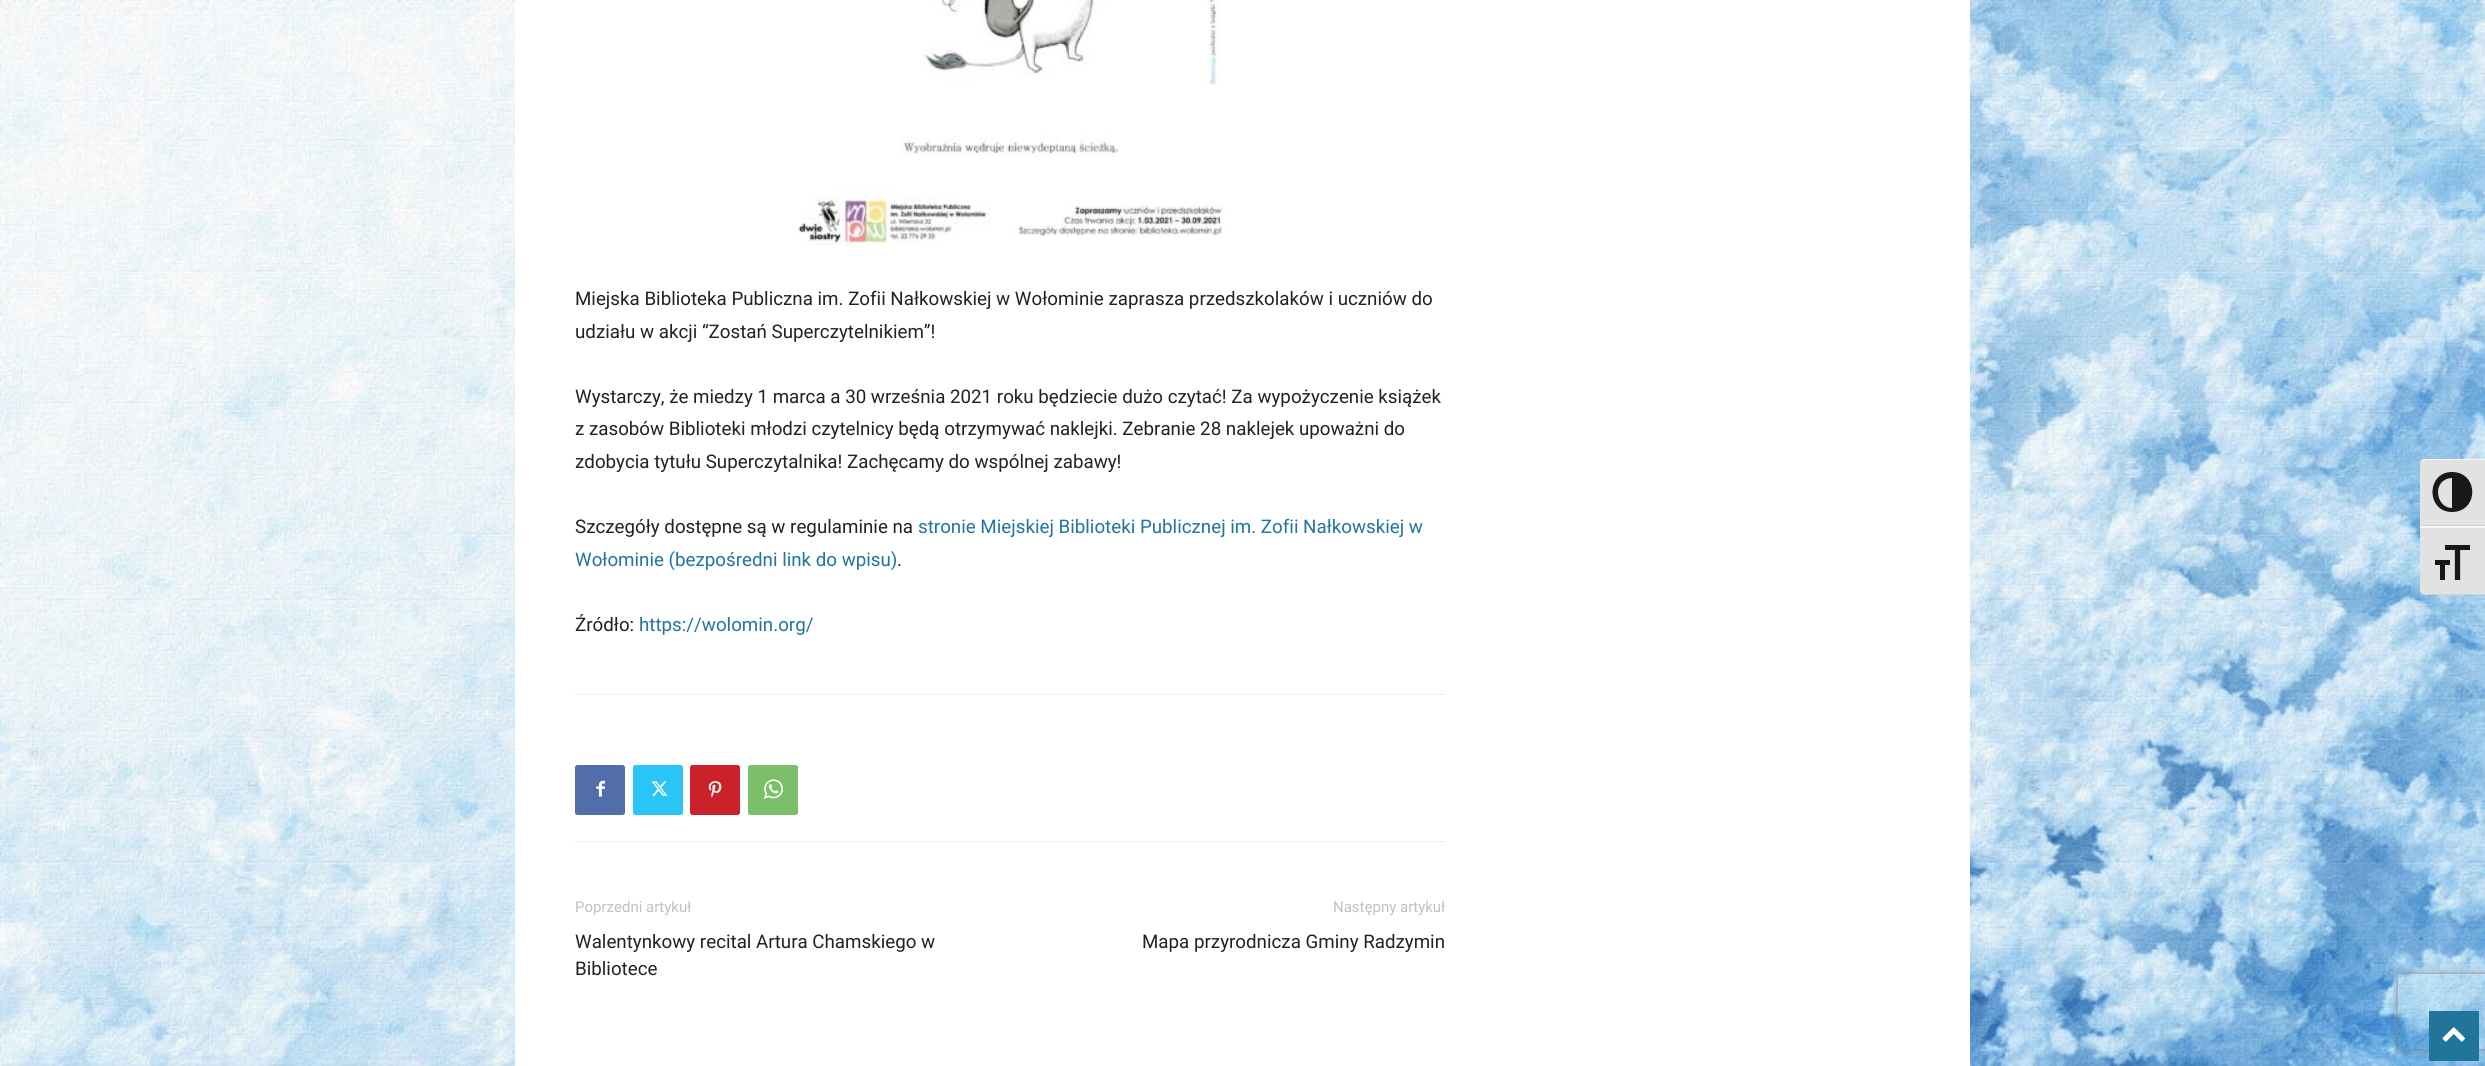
#include <cairo.h>
#include <math.h>
#include <stddef.h>

static cairo_t *c;
static void C(unsigned color){cairo_set_source_rgb(c, (color >> 16) / 255.0, (color >> 8 & 255) / 255.0, (color & 255) / 255.0);}
static void F(const char *family, double size, int italic, int bold){cairo_select_font_face(c, family, italic ? CAIRO_FONT_SLANT_ITALIC : CAIRO_FONT_SLANT_NORMAL,bold ? CAIRO_FONT_WEIGHT_BOLD : CAIRO_FONT_WEIGHT_NORMAL);cairo_set_font_size(c, size);}
static void T(double x, double y, const char *s){cairo_move_to(c, x, y);cairo_show_text(c, s);}
static void R(double x, double y, double w, double h){cairo_rectangle(c, x, y, w, h);cairo_fill(c);}
static void Q(double x, double y, double w, double h, double r){cairo_new_sub_path(c);cairo_arc(c, x + w - r, y + h - r, r, 0, M_PI / 2);cairo_arc(c, x + r, y + h - r, r, M_PI / 2, M_PI);cairo_arc(c, x + r, y + r, r, M_PI, 1.5 * M_PI);cairo_arc(c, x + w - r, y + r, r, 1.5 * M_PI, 2 * M_PI);cairo_close_path(c);}
static void S(double x, double y, double w, double h, double r, double blur, double alpha){cairo_push_group_with_content(c, CAIRO_CONTENT_ALPHA);cairo_set_operator(c, CAIRO_OPERATOR_SOURCE);for (int i = 15; i >= -15 && fmin(w, h) + blur * i / 3 > 0; i -= 2) {double e = blur * i / 6;cairo_set_source_rgba(c, 0, 0, 0, alpha * erfc((i - 1) / 8.5) / 2);Q(x - e, y - e, w + 2 * e, h + 2 * e, fmax(0, fmin(r + e + blur * .6, fmin(w, h) / 2 + e)));cairo_fill(c);}cairo_pattern_t *soft = cairo_pop_group(c);cairo_mask(c, soft);cairo_pattern_destroy(soft);}
static void I(const char *path, double x, double y, double w, double h){cairo_surface_t *image = cairo_image_surface_create_from_png(path);cairo_save(c);cairo_set_source_surface(c, image, x, y);cairo_rectangle(c, x, y, w, h);cairo_fill(c);cairo_restore(c);cairo_surface_destroy(image);}
int main(void) {
cairo_surface_t *surface = cairo_image_surface_create(CAIRO_FORMAT_RGB24, 2485, 1066);
c = cairo_create(surface);
cairo_font_options_t *options = cairo_font_options_create();
cairo_font_options_set_hint_metrics(options, CAIRO_HINT_METRICS_OFF);
cairo_font_options_set_hint_style(options, CAIRO_HINT_STYLE_NONE);
cairo_set_font_options(c, options);
cairo_set_miter_limit(c, 4);
C(0xffffff);
cairo_paint(c);
I("1.png",0,0,2485,1066);
C(0xffffff);
R(515,0,1455,1066);
I("2.png",793,0,432,246);
F("Roboto",18.75,0,0);
C(0x222222);
T(575,305,"Miejska Biblioteka Publiczna im. Zofii Nałkowskiej w Wołominie zaprasza przedszkolaków i uczniów do");
T(575,338,"udziału w akcji “Zostań Superczytelnikiem”!");
T(575,403,"Wystarczy, że miedzy 1 marca a 30 września 2021 roku będziecie dużo czytać! Za wypożyczenie książek");
T(575,435,"z zasobów Biblioteki młodzi czytelnicy będą otrzymywać naklejki. Zebranie 28 naklejek upoważni do");
T(575,468,"zdobycia tytułu Superczytalnika! Zachęcamy do wspólnej zabawy!");
T(575,533,"Szczegóły dostępne są w regulaminie na");
C(0x21759b);
T(918,533,"stronie Miejskiej Biblioteki Publicznej im. Zofii Nałkowskiej w");
T(575,566,"Wołominie (bezpośredni link do wpisu)");
C(0x222222);
T(897,566,".");
T(575,631,"Źródło:");
C(0x21759b);
T(639,631,"https://wolomin.org/");
C(0xededed);
R(575,694,870,1);
R(575,841,870,1);
C(0x516eab);
Q(575,765,50,50,2.5);
cairo_fill(c);
I("3.png",596,780,9,17);
C(0x29c5f6);
Q(633,765,50,50,2.5);
cairo_fill(c);
I("4.png",651,781,17,15);
C(0xca212a);
Q(690,765,50,50,2.5);
cairo_fill(c);
I("5.png",708,781,14,17);
C(0x7bbf6a);
Q(748,765,50,50,2.5);
cairo_fill(c);
I("6.png",763,779,20,20);
F("Roboto",15,0,0);
C(0xc1c1c1);
T(575,912,"Poprzedni artykuł");
F("Roboto",18.75,0,0);
C(0x222222);
T(575,948,"Walentynkowy recital Artura Chamskiego w");
T(575,975,"Bibliotece");
F("Roboto",15,0,0);
C(0xc1c1c1);
T(1333,912,"Następny artykuł");
F("Roboto",18.75,0,0);
C(0x222222);
T(1142,948,"Mapa przyrodnicza Gminy Radzymin");
C(0xe2e2e2);
cairo_new_path(c);
cairo_move_to(c,2425,459);
cairo_line_to(c,2485,459);
cairo_line_to(c,2485,526);
cairo_line_to(c,2420,526);
cairo_line_to(c,2420,464);
cairo_curve_to(c,2420,461,2422,459,2425,459);
cairo_close_path(c);
cairo_fill(c);
C(0xf5f5f5);
cairo_new_path(c);
cairo_move_to(c,2425,459);
cairo_line_to(c,2485,459);
cairo_line_to(c,2485,460);
cairo_line_to(c,2425,460);
cairo_curve_to(c,2422,460,2420,462,2420,464);
cairo_curve_to(c,2420,461,2422,459,2425,459);
cairo_close_path(c);
cairo_fill(c);
C(0xd2d2d2);
R(2420,525,65,1);
C(0x181818);
cairo_new_path(c);
cairo_move_to(c,2452,472);
cairo_curve_to(c,2426,472,2426,512,2452,512);
cairo_curve_to(c,2479,512,2479,472,2452,472);
cairo_close_path(c);
cairo_move_to(c,2438,492);
cairo_curve_to(c,2438,484,2444,478,2452,478);
cairo_line_to(c,2452,508);
cairo_curve_to(c,2444,508,2438,501,2438,492);
cairo_close_path(c);
cairo_fill(c);
C(0xe2e2e2);
cairo_new_path(c);
cairo_move_to(c,2420,526);
cairo_line_to(c,2485,526);
cairo_line_to(c,2485,595);
cairo_line_to(c,2425,595);
cairo_curve_to(c,2422,595,2420,593,2420,590);
cairo_close_path(c);
cairo_fill(c);
C(0xf5f5f5);
R(2420,526,65,2);
C(0xd2d2d2);
cairo_new_path(c);
cairo_move_to(c,2485,595);
cairo_line_to(c,2485,594);
cairo_line_to(c,2425,594);
cairo_curve_to(c,2422,594,2420,592,2420,590);
cairo_curve_to(c,2420,593,2422,595,2425,595);
cairo_close_path(c);
cairo_fill(c);
I("7.png",2435,545,35,35);
cairo_save(c);
cairo_set_fill_rule(c,CAIRO_FILL_RULE_EVEN_ODD);
cairo_new_path(c);
cairo_move_to(c,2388,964);
cairo_line_to(c,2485,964);
cairo_line_to(c,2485,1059);
cairo_line_to(c,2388,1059);
cairo_close_path(c);
cairo_move_to(c,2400.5,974);
cairo_line_to(c,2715.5,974);
cairo_curve_to(c,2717,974,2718,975,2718,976.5);
cairo_line_to(c,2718,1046.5);
cairo_curve_to(c,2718,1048,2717,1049,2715.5,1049);
cairo_line_to(c,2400.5,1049);
cairo_curve_to(c,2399,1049,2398,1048,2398,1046.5);
cairo_line_to(c,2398,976.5);
cairo_curve_to(c,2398,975,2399,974,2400.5,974);
cairo_close_path(c);
cairo_clip(c);
C(0x808080);
S(2398,974,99,75,2.5,3,1);
cairo_restore(c);
C(0x21759b);
R(2429,1011,50,50);
I("8.png",2442,1027,23,15);
cairo_surface_write_to_png(surface, "o.png");
cairo_font_options_destroy(options);
cairo_destroy(c);
cairo_surface_destroy(surface);
return 0;
}
